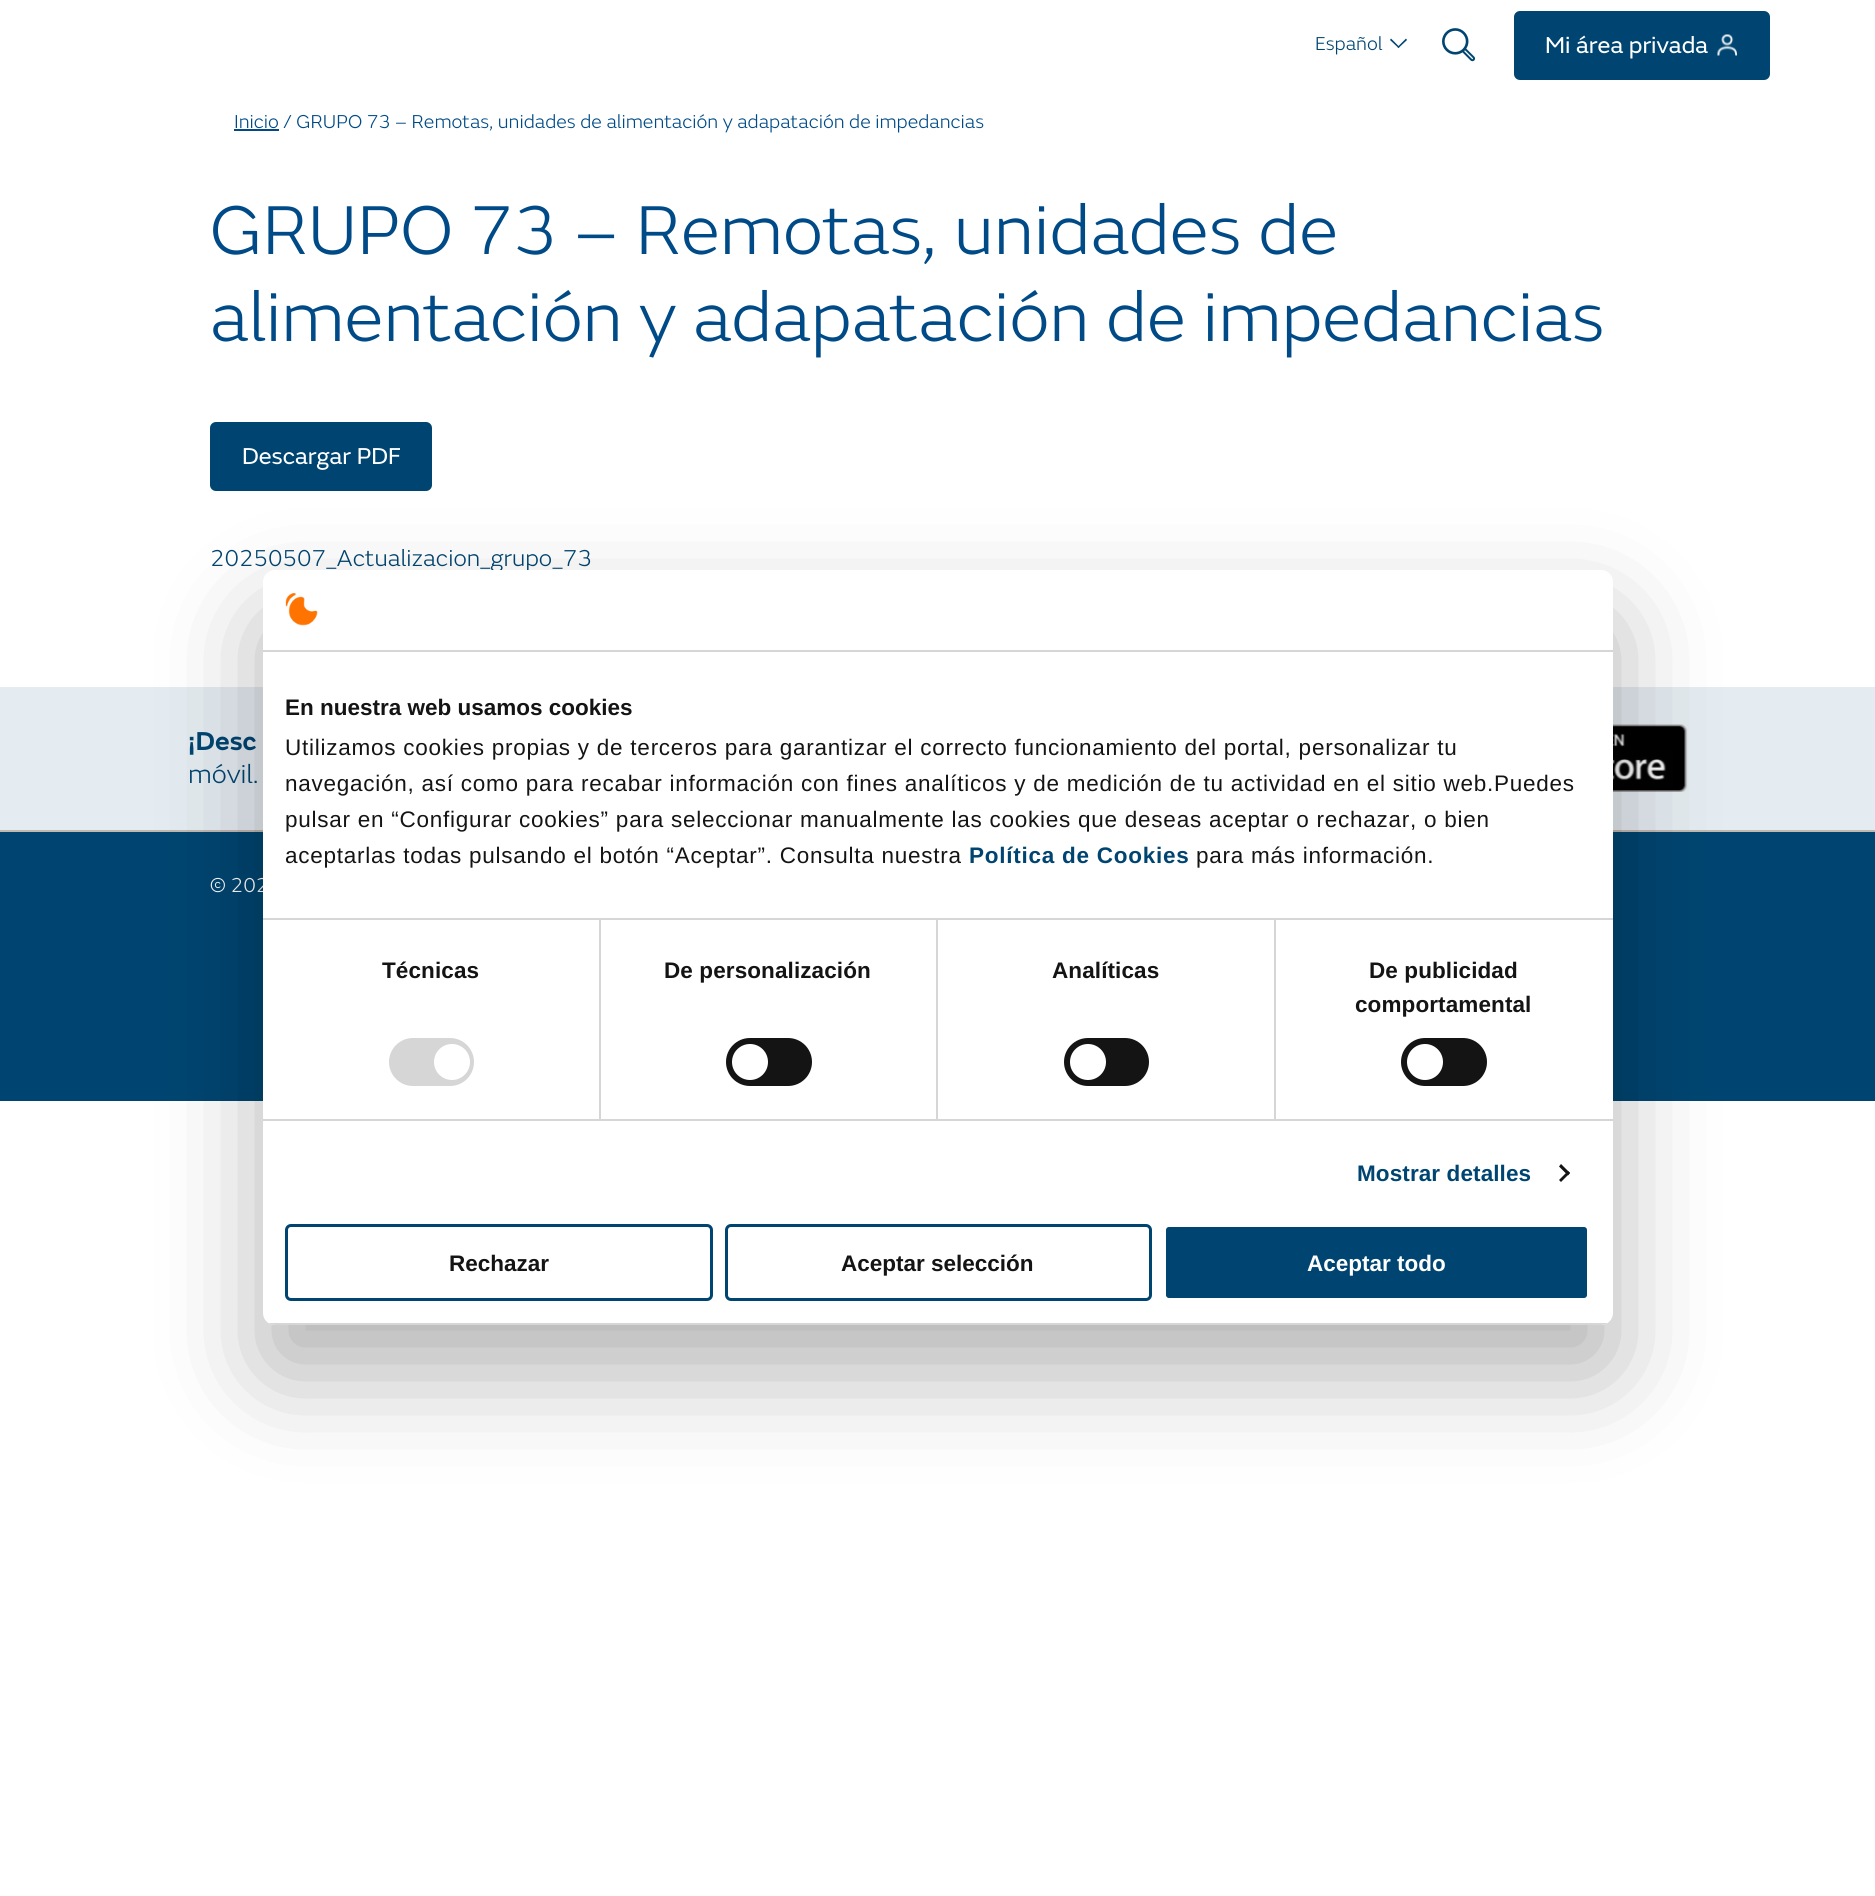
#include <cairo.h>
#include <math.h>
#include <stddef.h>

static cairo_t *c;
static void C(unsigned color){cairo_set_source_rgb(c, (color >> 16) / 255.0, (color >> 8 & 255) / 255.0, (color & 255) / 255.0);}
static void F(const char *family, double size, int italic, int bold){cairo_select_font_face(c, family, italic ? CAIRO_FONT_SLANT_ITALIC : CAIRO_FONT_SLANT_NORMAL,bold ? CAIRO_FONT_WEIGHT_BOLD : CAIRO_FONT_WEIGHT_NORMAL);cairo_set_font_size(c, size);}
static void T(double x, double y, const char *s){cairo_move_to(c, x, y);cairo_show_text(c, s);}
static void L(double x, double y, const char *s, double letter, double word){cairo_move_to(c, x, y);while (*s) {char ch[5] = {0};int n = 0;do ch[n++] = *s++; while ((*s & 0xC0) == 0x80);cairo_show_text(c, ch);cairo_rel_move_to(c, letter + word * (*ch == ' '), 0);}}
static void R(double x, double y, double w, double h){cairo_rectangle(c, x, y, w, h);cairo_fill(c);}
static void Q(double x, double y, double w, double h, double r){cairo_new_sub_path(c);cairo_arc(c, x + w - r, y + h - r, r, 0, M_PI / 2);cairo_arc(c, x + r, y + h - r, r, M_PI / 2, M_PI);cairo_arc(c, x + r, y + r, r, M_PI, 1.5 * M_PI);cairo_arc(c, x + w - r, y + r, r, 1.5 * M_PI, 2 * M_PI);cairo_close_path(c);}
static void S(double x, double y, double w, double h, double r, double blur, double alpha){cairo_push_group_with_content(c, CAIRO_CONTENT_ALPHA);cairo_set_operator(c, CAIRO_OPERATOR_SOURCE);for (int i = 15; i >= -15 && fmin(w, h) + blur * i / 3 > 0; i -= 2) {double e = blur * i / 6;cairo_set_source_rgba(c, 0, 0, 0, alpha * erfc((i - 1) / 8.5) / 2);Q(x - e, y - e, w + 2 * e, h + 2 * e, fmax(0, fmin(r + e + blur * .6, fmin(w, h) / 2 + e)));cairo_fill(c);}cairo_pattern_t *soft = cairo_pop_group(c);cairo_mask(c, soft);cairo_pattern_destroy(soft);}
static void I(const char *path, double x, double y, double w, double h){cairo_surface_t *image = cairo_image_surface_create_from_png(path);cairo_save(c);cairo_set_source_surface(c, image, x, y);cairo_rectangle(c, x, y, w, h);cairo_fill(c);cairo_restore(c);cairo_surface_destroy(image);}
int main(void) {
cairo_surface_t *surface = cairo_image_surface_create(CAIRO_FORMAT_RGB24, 1875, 1896);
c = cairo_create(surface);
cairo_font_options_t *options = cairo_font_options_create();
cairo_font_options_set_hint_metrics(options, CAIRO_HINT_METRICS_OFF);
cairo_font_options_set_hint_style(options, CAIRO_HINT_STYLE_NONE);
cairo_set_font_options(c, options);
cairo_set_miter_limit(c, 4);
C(0xffffff);
cairo_paint(c);
F("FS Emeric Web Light",19.5,0,0);
C(0x004571);
T(1315,50,"Español");
cairo_new_path(c);
cairo_move_to(c,1407,40);
cairo_line_to(c,1398.5,48);
cairo_line_to(c,1397.5,47);
cairo_line_to(c,1406,38.5);
cairo_close_path(c);
cairo_fill(c);
cairo_new_path(c);
cairo_move_to(c,1399.5,47);
cairo_line_to(c,1398.5,48);
cairo_line_to(c,1390,40);
cairo_line_to(c,1391,38.5);
cairo_close_path(c);
cairo_fill(c);
I("1.png",1442,28,33,34);
Q(1515,12,254,67,5);
cairo_fill_preserve(c);
cairo_stroke(c);
F("FS Emeric Web",24,0,0);
C(0xffffff);
T(1545,53,"Mi área privada");
I("2.png",1717,34,20,22);
C(0x004b87);
R(234,129,45,2);
F("FS Emeric Web Light",19.5,0,0);
T(234,128,"Inicio / GRUPO 73 – Remotas, unidades de alimentación y adapatación de impedancias");
F("FS Emeric Web Light",72,0,0);
T(210,254,"GRUPO 73 – Remotas, unidades de");
T(210,341,"alimentación y adapatación de impedancias");
C(0x004571);
Q(211,423,220,67,5);
cairo_fill_preserve(c);
cairo_stroke(c);
F("FS Emeric Web",24,0,0);
C(0xffffff);
T(242,464,"Descargar PDF");
F("FS Emeric Web Light",24,0,0);
C(0x004571);
T(210,566,"20250507_Actualizacion_grupo_73");
C(0xe5ecf1);
R(0,687,1875,143);
C(0xc1b8b0);
R(0,830,1875,2);
F("FS Emeric Web SemiBold",27,0,0);
C(0x004571);
T(188,750,"¡Desc");
F("FS Emeric Web Light",27,0,0);
T(188,783,"móvil.");
I("3.png",1613,724,75,68);
R(0,832,1875,269);
F("FS Emeric Web Light",21,0,0);
C(0xffffff);
T(210,892,"© 202");
C(0x000000);
S(263,618,1350,755,12,51,.3);
C(0xffffff);
Q(263,570,1350,755,12);
cairo_fill(c);
C(0xd6d6d6);
R(263,650,1350,2);
I("4.png",285,593,33,33);
R(263,918,1350,2);
F("Liberation Sans",22.5,0,1);
C(0x141414);
T(285,715,"En nuestra web usamos cookies");
F("Liberation Sans",22.5,0,0);
L(285,755,"Utilizamos cookies propias y de terceros para garantizar el correcto funcionamiento del portal, personalizar tu",.75,0);
L(285,791,"navegación, así como para recabar información con fines analíticos y de medición de tu actividad en el sitio web.Puedes",.75,0);
L(285,827,"pulsar en “Configurar cookies” para seleccionar manualmente las cookies que deseas aceptar o rechazar, o bien",.75,0);
L(285,863,"aceptarlas todas pulsando el botón “Aceptar”. Consulta nuestra",.75,0);
F("Liberation Sans",22.5,0,1);
C(0x004571);
L(969,863,"Política de Cookies",.75,0);
F("Liberation Sans",22.5,0,0);
C(0x141414);
L(1196,863,"para más información.",.75,0);
C(0xd6d6d6);
R(263,1119,1350,2);
R(599,920,2,199);
F("Liberation Sans",22.5,0,1);
C(0x141414);
L(382,978,"Técnicas",.1,0);
C(0xd6d6d6);
Q(389,1038,85,48,24);
cairo_fill(c);
C(0xffffff);
cairo_arc(c,452,1062,18,0,2 * M_PI);
cairo_fill(c);
C(0xd6d6d6);
R(936,920,2,199);
C(0x141414);
L(664,978,"De personalización",.1,0);
Q(726,1038,86,48,24);
cairo_fill(c);
C(0xffffff);
cairo_arc(c,750,1062,18,0,2 * M_PI);
cairo_fill(c);
C(0xd6d6d6);
R(1274,920,2,199);
C(0x141414);
L(1052,978,"Analíticas",.1,0);
Q(1064,1038,85,48,24);
cairo_fill(c);
C(0xffffff);
cairo_arc(c,1088,1062,18,0,2 * M_PI);
cairo_fill(c);
C(0x141414);
L(1369,978,"De publicidad",.1,0);
L(1355,1012,"comportamental",.1,0);
Q(1401,1038,86,48,24);
cairo_fill(c);
C(0xffffff);
cairo_arc(c,1425,1062,18,0,2 * M_PI);
cairo_fill(c);
C(0x004571);
L(1357,1181,"Mostrar detalles",.1,0);
C(0x141414);
cairo_new_path(c);
cairo_move_to(c,1561,1164);
cairo_line_to(c,1570,1173);
cairo_line_to(c,1568,1175.5);
cairo_line_to(c,1559,1166.5);
cairo_close_path(c);
cairo_fill(c);
cairo_new_path(c);
cairo_move_to(c,1568,1171);
cairo_line_to(c,1570,1173);
cairo_line_to(c,1561,1182);
cairo_line_to(c,1559,1180);
cairo_close_path(c);
cairo_fill(c);
cairo_save(c);
Q(263,570,1350,755,12);
cairo_clip(c);
C(0xd6d6d6);
R(263,1323,1350,2);
cairo_restore(c);
Q(286.5,1225.5,425,74,4.5);
C(0x004571);
cairo_set_line_width(c,3);
cairo_stroke(c);
C(0x141414);
T(449,1271,"Rechazar");
Q(726.5,1225.5,424,74,4.5);
C(0x004571);
cairo_stroke(c);
C(0x141414);
T(841,1271,"Aceptar selección");
C(0x004571);
Q(1164.5,1225.5,424,74,4.5);
cairo_fill_preserve(c);
C(0xffffff);
cairo_stroke(c);
T(1307,1271,"Aceptar todo");
cairo_surface_write_to_png(surface, "o.png");
cairo_font_options_destroy(options);
cairo_destroy(c);
cairo_surface_destroy(surface);
return 0;
}
